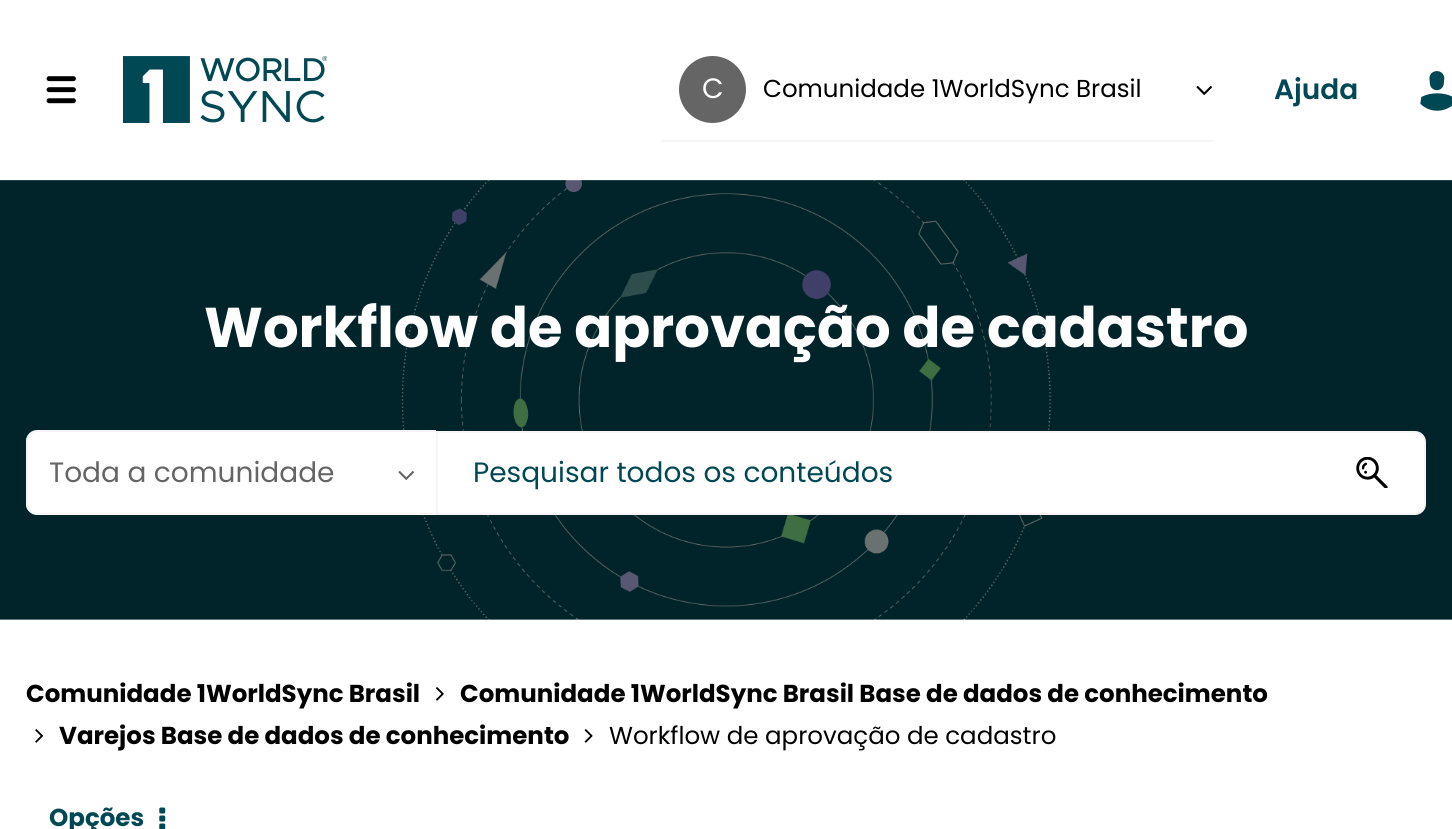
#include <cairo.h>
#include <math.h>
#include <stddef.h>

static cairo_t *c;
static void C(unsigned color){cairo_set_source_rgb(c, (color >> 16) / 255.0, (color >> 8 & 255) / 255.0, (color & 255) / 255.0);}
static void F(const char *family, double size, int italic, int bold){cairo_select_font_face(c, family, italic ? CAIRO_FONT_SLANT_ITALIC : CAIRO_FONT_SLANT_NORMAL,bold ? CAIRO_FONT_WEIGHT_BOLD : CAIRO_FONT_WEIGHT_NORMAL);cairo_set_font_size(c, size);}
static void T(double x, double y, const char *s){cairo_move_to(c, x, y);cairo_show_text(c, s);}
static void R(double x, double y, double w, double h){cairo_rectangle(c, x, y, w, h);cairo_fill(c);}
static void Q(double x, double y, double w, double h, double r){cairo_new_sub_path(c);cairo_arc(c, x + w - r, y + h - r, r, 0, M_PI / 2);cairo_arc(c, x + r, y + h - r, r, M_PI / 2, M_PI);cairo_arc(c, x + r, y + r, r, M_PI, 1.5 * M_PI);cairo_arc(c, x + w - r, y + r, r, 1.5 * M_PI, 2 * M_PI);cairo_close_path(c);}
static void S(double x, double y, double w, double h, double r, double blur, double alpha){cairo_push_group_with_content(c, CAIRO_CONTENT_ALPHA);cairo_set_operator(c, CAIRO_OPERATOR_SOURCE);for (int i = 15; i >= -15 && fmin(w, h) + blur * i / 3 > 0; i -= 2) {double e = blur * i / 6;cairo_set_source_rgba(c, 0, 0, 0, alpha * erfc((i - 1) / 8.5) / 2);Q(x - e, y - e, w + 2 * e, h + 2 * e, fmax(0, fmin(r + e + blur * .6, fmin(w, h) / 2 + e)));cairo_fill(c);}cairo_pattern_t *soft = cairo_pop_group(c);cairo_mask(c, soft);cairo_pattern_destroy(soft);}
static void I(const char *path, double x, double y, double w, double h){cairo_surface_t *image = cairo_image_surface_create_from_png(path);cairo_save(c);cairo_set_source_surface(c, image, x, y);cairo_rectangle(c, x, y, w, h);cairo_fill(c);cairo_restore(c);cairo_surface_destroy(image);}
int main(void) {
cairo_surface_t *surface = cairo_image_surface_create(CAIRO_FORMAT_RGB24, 1452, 829);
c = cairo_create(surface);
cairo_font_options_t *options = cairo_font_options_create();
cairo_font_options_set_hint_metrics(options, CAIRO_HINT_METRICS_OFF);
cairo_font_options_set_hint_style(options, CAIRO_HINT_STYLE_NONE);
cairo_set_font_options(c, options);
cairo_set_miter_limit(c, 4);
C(0xffffff);
cairo_paint(c);
cairo_save(c);
cairo_rectangle(c,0,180,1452,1);
cairo_clip(c);
C(0x000000);
S(2,5,1449,177,0,3.5,.25);
cairo_restore(c);
I("1.png",46,76,30,28);
I("2.png",123,56,204,67);
C(0xf5f5f7);
R(662,140,551,2);
C(0x656565);
cairo_arc(c,712.5,89.5,33.5,0,2 * M_PI);
cairo_fill(c);
F("Poppins",28,0,0);
C(0xffffff);
T(702,98,"C");
F("Poppins",24.5,0,0);
C(0x000000);
T(763,97,"Comunidade 1WorldSync Brasil");
I("3.png",1196,86,16,9);
F("Poppins SemiBold",28,0,0);
C(0x004853);
T(1274,99,"Ajuda");
I("4.png",1420,71,32,40);
I("5.png",0,180,1452,440);
F("Poppins",56,0,1);
C(0xffffff);
T(204,347,"Workflow de aprovação de cadastro");
cairo_new_path(c);
cairo_move_to(c,37,431);
cairo_line_to(c,436,431);
cairo_line_to(c,436,515);
cairo_line_to(c,37,515);
cairo_curve_to(c,31,515,26,510,26,504);
cairo_line_to(c,26,442);
cairo_curve_to(c,26,436,31,431,37,431);
cairo_close_path(c);
cairo_fill(c);
C(0xf5f5f7);
cairo_set_fill_rule(c,CAIRO_FILL_RULE_EVEN_ODD);
cairo_new_path(c);
cairo_move_to(c,37,430);
cairo_line_to(c,436,430);
cairo_line_to(c,436,514);
cairo_line_to(c,37,514);
cairo_curve_to(c,31,514,26,510,26,504);
cairo_line_to(c,26,441);
cairo_curve_to(c,26,435,31,430,37,430);
cairo_close_path(c);
cairo_move_to(c,37,432);
cairo_line_to(c,436,432);
cairo_line_to(c,436,513);
cairo_line_to(c,37,513);
cairo_curve_to(c,32,513,28,509,28,504);
cairo_line_to(c,28,441);
cairo_curve_to(c,28,436,32,432,37,432);
cairo_close_path(c);
cairo_fill(c);
F("Poppins",28,0,0);
C(0x656565);
T(49,482,"Toda a comunidade");
I("6.png",398,471,16,9);
C(0xffffff);
cairo_new_path(c);
cairo_move_to(c,437,432);
cairo_line_to(c,1415,432);
cairo_curve_to(c,1420.5,432,1425,436.5,1425,442);
cairo_line_to(c,1425,504);
cairo_curve_to(c,1425,509.5,1420.5,514,1415,514);
cairo_line_to(c,437,514);
cairo_close_path(c);
cairo_fill_preserve(c);
C(0xf5f5f7);
cairo_stroke(c);
C(0x004853);
T(473,482,"Pesquisar todos os conteúdos");
I("7.png",1356,457,32,31);
F("Poppins",24.5,0,1);
C(0x000000);
T(26,702,"Comunidade 1WorldSync Brasil");
I("8.png",436,687,8,14);
T(460,702,"Comunidade 1WorldSync Brasil Base de dados de conhecimento");
I("9.png",35,729,9,14);
T(59,744,"Varejos Base de dados de conhecimento");
I("10.png",584,729,9,14);
F("Poppins",24.5,0,0);
T(609,744,"Workflow de aprovação de cadastro");
F("Poppins",24.5,0,1);
C(0x004853);
T(49,826,"Opções");
I("11.png",159,807,7,22);
cairo_surface_write_to_png(surface, "o.png");
cairo_font_options_destroy(options);
cairo_destroy(c);
cairo_surface_destroy(surface);
return 0;
}
